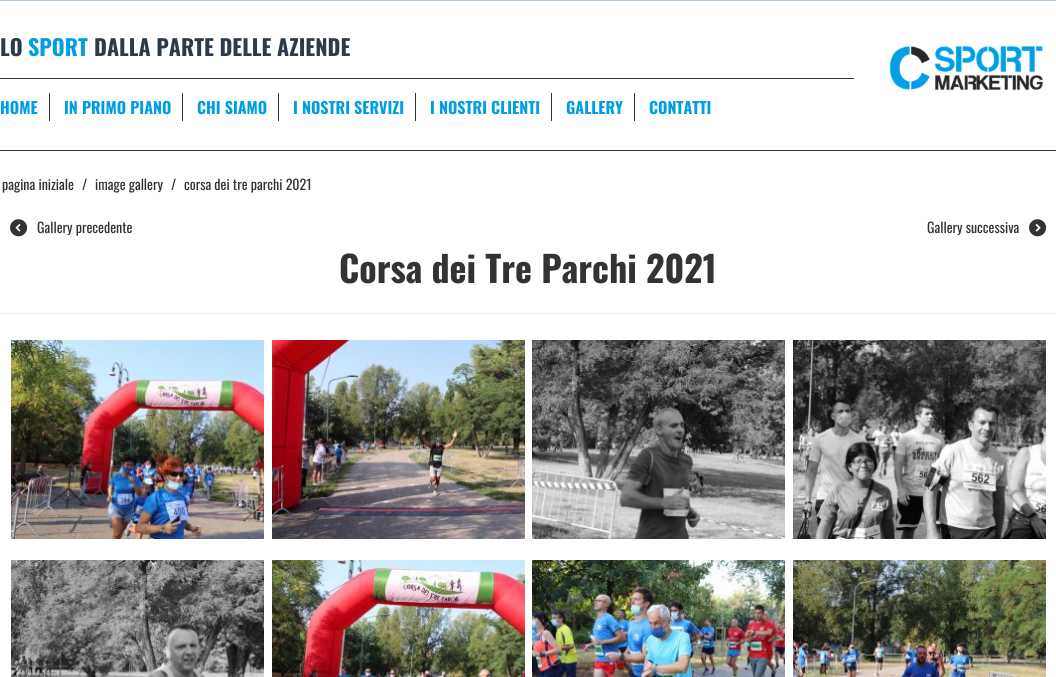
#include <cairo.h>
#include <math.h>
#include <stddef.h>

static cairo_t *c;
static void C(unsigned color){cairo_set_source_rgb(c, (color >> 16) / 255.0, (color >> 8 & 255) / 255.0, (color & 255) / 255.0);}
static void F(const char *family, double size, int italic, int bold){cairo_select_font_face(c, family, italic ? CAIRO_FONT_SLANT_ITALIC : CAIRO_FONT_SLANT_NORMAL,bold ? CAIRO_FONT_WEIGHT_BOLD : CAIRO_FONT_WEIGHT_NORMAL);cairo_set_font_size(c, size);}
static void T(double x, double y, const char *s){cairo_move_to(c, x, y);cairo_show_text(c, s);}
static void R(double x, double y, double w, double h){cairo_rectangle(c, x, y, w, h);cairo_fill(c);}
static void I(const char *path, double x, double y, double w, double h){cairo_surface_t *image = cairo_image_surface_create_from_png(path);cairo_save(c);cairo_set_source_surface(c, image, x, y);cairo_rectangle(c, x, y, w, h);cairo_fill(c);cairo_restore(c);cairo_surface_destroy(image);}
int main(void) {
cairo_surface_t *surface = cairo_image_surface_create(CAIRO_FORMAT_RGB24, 1056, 677);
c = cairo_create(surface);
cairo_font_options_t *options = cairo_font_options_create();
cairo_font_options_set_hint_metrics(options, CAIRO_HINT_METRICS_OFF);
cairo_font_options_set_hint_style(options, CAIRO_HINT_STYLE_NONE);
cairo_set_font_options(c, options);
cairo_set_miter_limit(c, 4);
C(0xffffff);
cairo_paint(c);
C(0xb1cddd);
R(0,0,1056,1);
C(0x333333);
R(0,150,1056,1);
R(0,78,854,1);
F("Oswald",22,0,1);
C(0x2e3a47);
T(0,56,"LO");
C(0x009fe3);
T(28,56,"SPORT");
C(0x2e3a47);
T(94,56,"DALLA PARTE DELLE AZIENDE");
C(0x333333);
R(49,93,1,28);
F("Oswald",16,0,1);
C(0x009fe3);
T(0,114,"HOME");
C(0x333333);
R(182,93,1,28);
C(0x009fe3);
T(64,114,"IN PRIMO PIANO");
C(0x333333);
R(278,93,1,28);
C(0x009fe3);
T(197,114,"CHI SIAMO");
C(0x333333);
R(415,93,1,28);
C(0x009fe3);
T(293,114,"I NOSTRI SERVIZI");
C(0x333333);
R(551,93,1,28);
C(0x009fe3);
T(430,114,"I NOSTRI CLIENTI");
C(0x333333);
R(634,93,1,28);
C(0x009fe3);
T(566,114,"GALLERY");
T(649,114,"CONTATTI");
I("1.png",889,46,154,45);
F("Oswald",14,0,0);
C(0x333333);
T(2,190,"pagina iniziale");
T(82,190,"/");
T(95,190,"image gallery");
T(171,190,"/");
T(184,190,"corsa dei tre parchi 2021");
I("2.png",10,219,18,18);
T(37,233,"Gallery precedente");
T(927,233,"Gallery successiva");
I("3.png",1029,219,18,18);
F("Oswald",36,0,1);
T(339,283,"Corsa dei Tre Parchi 2021");
C(0xedeff1);
R(0,313,1056,1);
I("4.png",11,340,253,199);
I("5.png",272,340,253,199);
I("6.png",532,340,253,199);
I("7.png",793,340,253,199);
I("8.png",11,560,253,117);
I("9.png",272,560,253,117);
I("10.png",532,560,253,117);
I("11.png",793,560,253,117);
cairo_surface_write_to_png(surface, "o.png");
cairo_font_options_destroy(options);
cairo_destroy(c);
cairo_surface_destroy(surface);
return 0;
}
